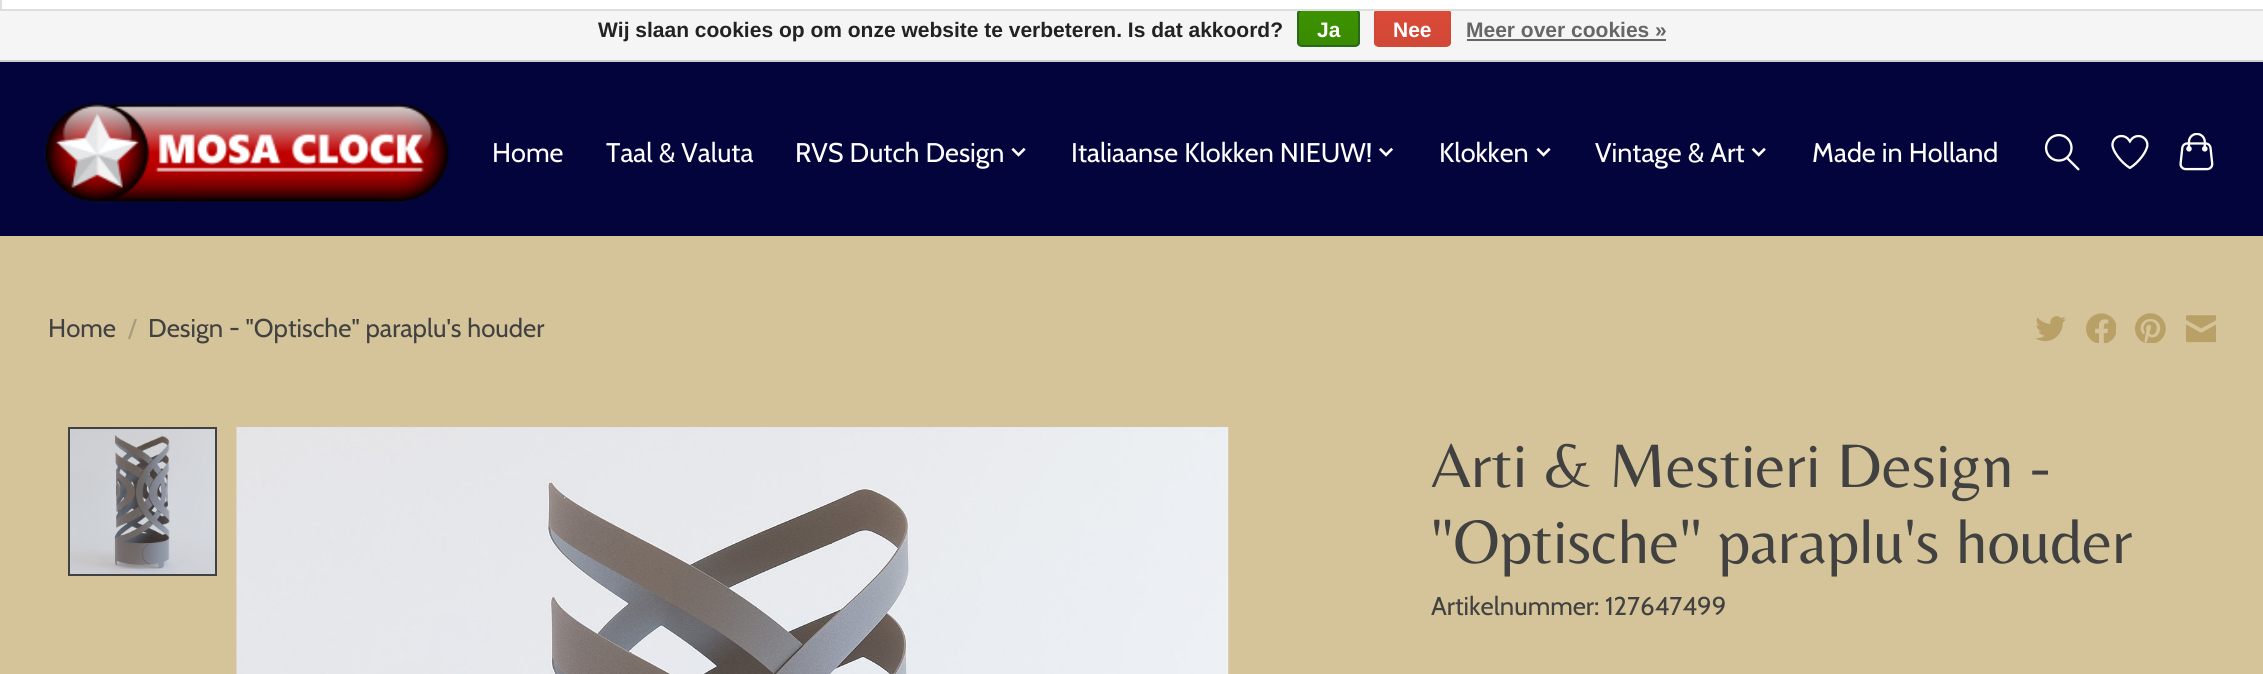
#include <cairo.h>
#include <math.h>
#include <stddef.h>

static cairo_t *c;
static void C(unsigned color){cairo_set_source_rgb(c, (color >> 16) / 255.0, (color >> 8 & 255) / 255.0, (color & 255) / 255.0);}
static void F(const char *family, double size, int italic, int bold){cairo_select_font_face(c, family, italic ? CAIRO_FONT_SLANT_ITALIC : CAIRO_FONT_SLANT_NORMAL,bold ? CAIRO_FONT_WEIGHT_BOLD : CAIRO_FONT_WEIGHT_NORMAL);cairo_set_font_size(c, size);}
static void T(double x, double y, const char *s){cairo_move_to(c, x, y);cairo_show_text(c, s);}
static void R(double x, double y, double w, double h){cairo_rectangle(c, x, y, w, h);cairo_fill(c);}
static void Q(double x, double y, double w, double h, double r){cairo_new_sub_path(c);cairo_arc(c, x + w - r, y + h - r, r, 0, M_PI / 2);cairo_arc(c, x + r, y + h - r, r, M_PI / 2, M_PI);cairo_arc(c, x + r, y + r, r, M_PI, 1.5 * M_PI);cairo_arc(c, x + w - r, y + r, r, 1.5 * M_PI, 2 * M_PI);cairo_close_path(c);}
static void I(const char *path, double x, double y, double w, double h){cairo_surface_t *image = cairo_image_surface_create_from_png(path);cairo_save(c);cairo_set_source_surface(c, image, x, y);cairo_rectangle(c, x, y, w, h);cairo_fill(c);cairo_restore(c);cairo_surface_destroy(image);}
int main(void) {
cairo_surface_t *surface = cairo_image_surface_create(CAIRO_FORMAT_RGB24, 2263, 674);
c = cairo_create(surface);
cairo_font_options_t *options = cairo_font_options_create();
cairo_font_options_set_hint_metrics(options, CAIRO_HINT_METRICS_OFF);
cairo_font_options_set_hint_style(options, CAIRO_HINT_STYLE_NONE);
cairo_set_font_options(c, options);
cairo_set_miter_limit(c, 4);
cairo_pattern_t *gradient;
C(0xd5c499);
cairo_paint(c);
C(0xf5f5f5);
R(0,11,2263,49);
cairo_save(c);
Q(1297,9,63,38,5);
cairo_clip(c);
gradient = cairo_pattern_create_linear(1328,10,1328,46);
cairo_pattern_add_color_stop_rgba(gradient,0,0.235,0.576,0,1);
cairo_pattern_add_color_stop_rgba(gradient,1,0.224,0.541,0,1);
cairo_set_source(c,gradient);
cairo_pattern_destroy(gradient);
R(1297,11,63,35);
cairo_restore(c);
Q(1298,10,61,36,4);
C(0x29691d);
cairo_stroke(c);
cairo_save(c);
Q(1374,9,77,38,5);
cairo_clip(c);
gradient = cairo_pattern_create_linear(1412,10,1412,46);
cairo_pattern_add_color_stop_rgba(gradient,0,0.863,0.29,0.22,1);
cairo_pattern_add_color_stop_rgba(gradient,1,0.82,0.282,0.212,1);
cairo_set_source(c,gradient);
cairo_pattern_destroy(gradient);
R(1374,11,77,35);
cairo_restore(c);
Q(1375,10,75,36,4);
C(0xd14836);
cairo_stroke(c);
C(0xffffff);
cairo_rectangle(c,1,-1,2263,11);
cairo_fill_preserve(c);
C(0xdedede);
cairo_stroke(c);
C(0xcccccc);
R(0,60,2263,2);
F("Liberation Sans",21,0,1);
C(0x222222);
T(598,37,"Wij slaan cookies op om onze website te verbeteren. Is dat akkoord?");
C(0xffffff);
T(1317,37,"Ja");
T(1393,37,"Nee");
C(0x666666);
T(1466,37,"Meer over cookies »");
R(1467,39,199,2);
C(0x04043c);
R(0,62,2263,174);
I("1.png",44,103,405,100);
F("Cabin",27,0,0);
C(0xffffff);
T(492,162,"Home");
T(606,162,"Taal & Valuta");
T(795,162,"RVS Dutch Design");
I("2.png",1011,147,15,10);
T(1071,162,"Italiaanse Klokken NIEUW!");
I("3.png",1379,147,14,10);
T(1439,162,"Klokken");
I("2.png",1536,147,15,10);
T(1595,162,"Vintage & Art");
I("4.png",1751,147,15,10);
T(1812,162,"Made in Holland");
I("5.png",2044,133,36,38);
I("6.png",2111,134,38,36);
I("7.png",2179,133,35,38);
F("Cabin",25.7,0,0);
C(0x414141);
T(48,337,"Home");
C(0xa99d7f);
T(128,337,"/");
C(0x414141);
T(148,337,"Design - \"Optische\" paraplu's houder");
I("8.png",2035,316,31,26);
I("9.png",2086,313,30,30);
I("10.png",2135,313,31,30);
I("11.png",2186,315,30,28);
I("12.png",70,429,145,145);
cairo_rectangle(c,69,428,147,147);
cairo_stroke(c);
I("13.png",236,427,993,247);
F("Belleza",63.9,0,0);
T(1431,487,"Arti & Mestieri Design -");
T(1431,563,"\"Optische\" paraplu's houder");
F("Cabin",25.7,0,0);
T(1431,615,"Artikelnummer: 127647499");
cairo_surface_write_to_png(surface, "o.png");
cairo_font_options_destroy(options);
cairo_destroy(c);
cairo_surface_destroy(surface);
return 0;
}
